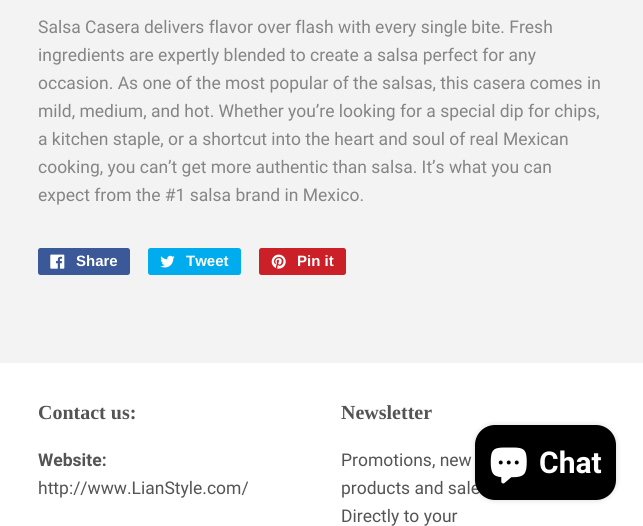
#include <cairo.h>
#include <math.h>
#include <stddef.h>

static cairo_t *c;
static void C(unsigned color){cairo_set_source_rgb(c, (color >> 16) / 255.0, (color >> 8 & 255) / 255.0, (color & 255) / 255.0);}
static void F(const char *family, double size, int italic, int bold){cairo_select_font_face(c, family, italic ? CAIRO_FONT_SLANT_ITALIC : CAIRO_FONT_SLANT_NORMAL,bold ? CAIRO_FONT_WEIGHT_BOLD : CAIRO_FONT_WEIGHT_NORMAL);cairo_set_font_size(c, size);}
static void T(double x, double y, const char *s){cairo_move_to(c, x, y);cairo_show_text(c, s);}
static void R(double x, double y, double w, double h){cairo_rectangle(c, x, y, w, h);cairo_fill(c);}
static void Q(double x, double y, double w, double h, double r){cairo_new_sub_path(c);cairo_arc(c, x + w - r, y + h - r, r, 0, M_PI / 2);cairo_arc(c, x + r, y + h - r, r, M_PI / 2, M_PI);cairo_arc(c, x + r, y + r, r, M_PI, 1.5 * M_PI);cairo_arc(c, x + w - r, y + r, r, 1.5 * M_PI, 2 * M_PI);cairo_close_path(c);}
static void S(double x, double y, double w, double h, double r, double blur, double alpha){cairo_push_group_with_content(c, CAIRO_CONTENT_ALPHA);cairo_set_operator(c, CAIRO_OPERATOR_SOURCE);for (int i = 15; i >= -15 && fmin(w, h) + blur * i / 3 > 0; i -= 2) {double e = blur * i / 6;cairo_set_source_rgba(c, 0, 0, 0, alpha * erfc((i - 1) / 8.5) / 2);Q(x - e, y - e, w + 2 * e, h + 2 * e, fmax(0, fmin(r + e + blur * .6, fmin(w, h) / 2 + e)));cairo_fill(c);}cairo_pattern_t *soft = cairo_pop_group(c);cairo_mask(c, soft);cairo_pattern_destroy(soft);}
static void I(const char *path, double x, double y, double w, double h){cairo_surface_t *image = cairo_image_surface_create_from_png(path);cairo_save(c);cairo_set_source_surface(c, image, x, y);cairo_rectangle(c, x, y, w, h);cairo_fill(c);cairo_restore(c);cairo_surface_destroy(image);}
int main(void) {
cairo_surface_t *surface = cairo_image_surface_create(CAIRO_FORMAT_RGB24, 643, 526);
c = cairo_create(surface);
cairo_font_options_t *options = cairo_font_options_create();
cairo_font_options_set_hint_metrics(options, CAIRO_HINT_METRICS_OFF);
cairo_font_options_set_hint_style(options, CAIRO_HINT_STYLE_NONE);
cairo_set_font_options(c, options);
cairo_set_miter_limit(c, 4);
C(0xf3f3f3);
cairo_paint(c);
F("Roboto",17.5,0,0);
C(0x858585);
T(38,33,"Salsa Casera delivers flavor over flash with every single bite. Fresh");
T(38,61,"ingredients are expertly blended to create a salsa perfect for any");
T(38,89,"occasion. As one of the most popular of the salsas, this casera comes in");
T(38,117,"mild, medium, and hot. Whether you’re looking for a special dip for chips,");
T(38,145,"a kitchen staple, or a shortcut into the heart and soul of real Mexican");
T(38,173,"cooking, you can’t get more authentic than salsa. It’s what you can");
T(38,201,"expect from the #1 salsa brand in Mexico.");
C(0x3b5998);
Q(38,248,92,27,2.5);
cairo_fill(c);
I("1.png",50,254,15,15);
F("Liberation Sans",15,0,1);
C(0xffffff);
T(76,266,"Share");
C(0x00aced);
Q(148,248,93,27,2.5);
cairo_fill(c);
I("2.png",160,255,15,13);
C(0xffffff);
T(186,266,"Tweet");
C(0xcb2027);
Q(259,248,87,27,2.5);
cairo_fill(c);
I("3.png",271,254,15,15);
C(0xffffff);
T(297,266,"Pin it");
R(0,363,643,163);
F("Liberation Serif",20,0,1);
C(0x545454);
T(38,419,"Contact us:");
F("Roboto",17.5,0,1);
T(38,466,"Website:");
F("Roboto",17.5,0,0);
T(38,494,"http://www.LianStyle.com/");
F("Liberation Serif",20,0,1);
T(341,419,"Newsletter");
F("Roboto",17.5,0,0);
T(341,466,"Promotions, new");
T(341,494,"products and sale");
T(341,522,"Directly to your");
C(0x000000);
S(475,425,141,75,20,3,.15);
C(0x000000);
Q(475,425,141,75,20);
cairo_fill(c);
I("4.png",490,447,37,37);
F("Roboto",30,0,1);
C(0xffffff);
T(539,473,"Chat");
cairo_surface_write_to_png(surface, "o.png");
cairo_font_options_destroy(options);
cairo_destroy(c);
cairo_surface_destroy(surface);
return 0;
}
